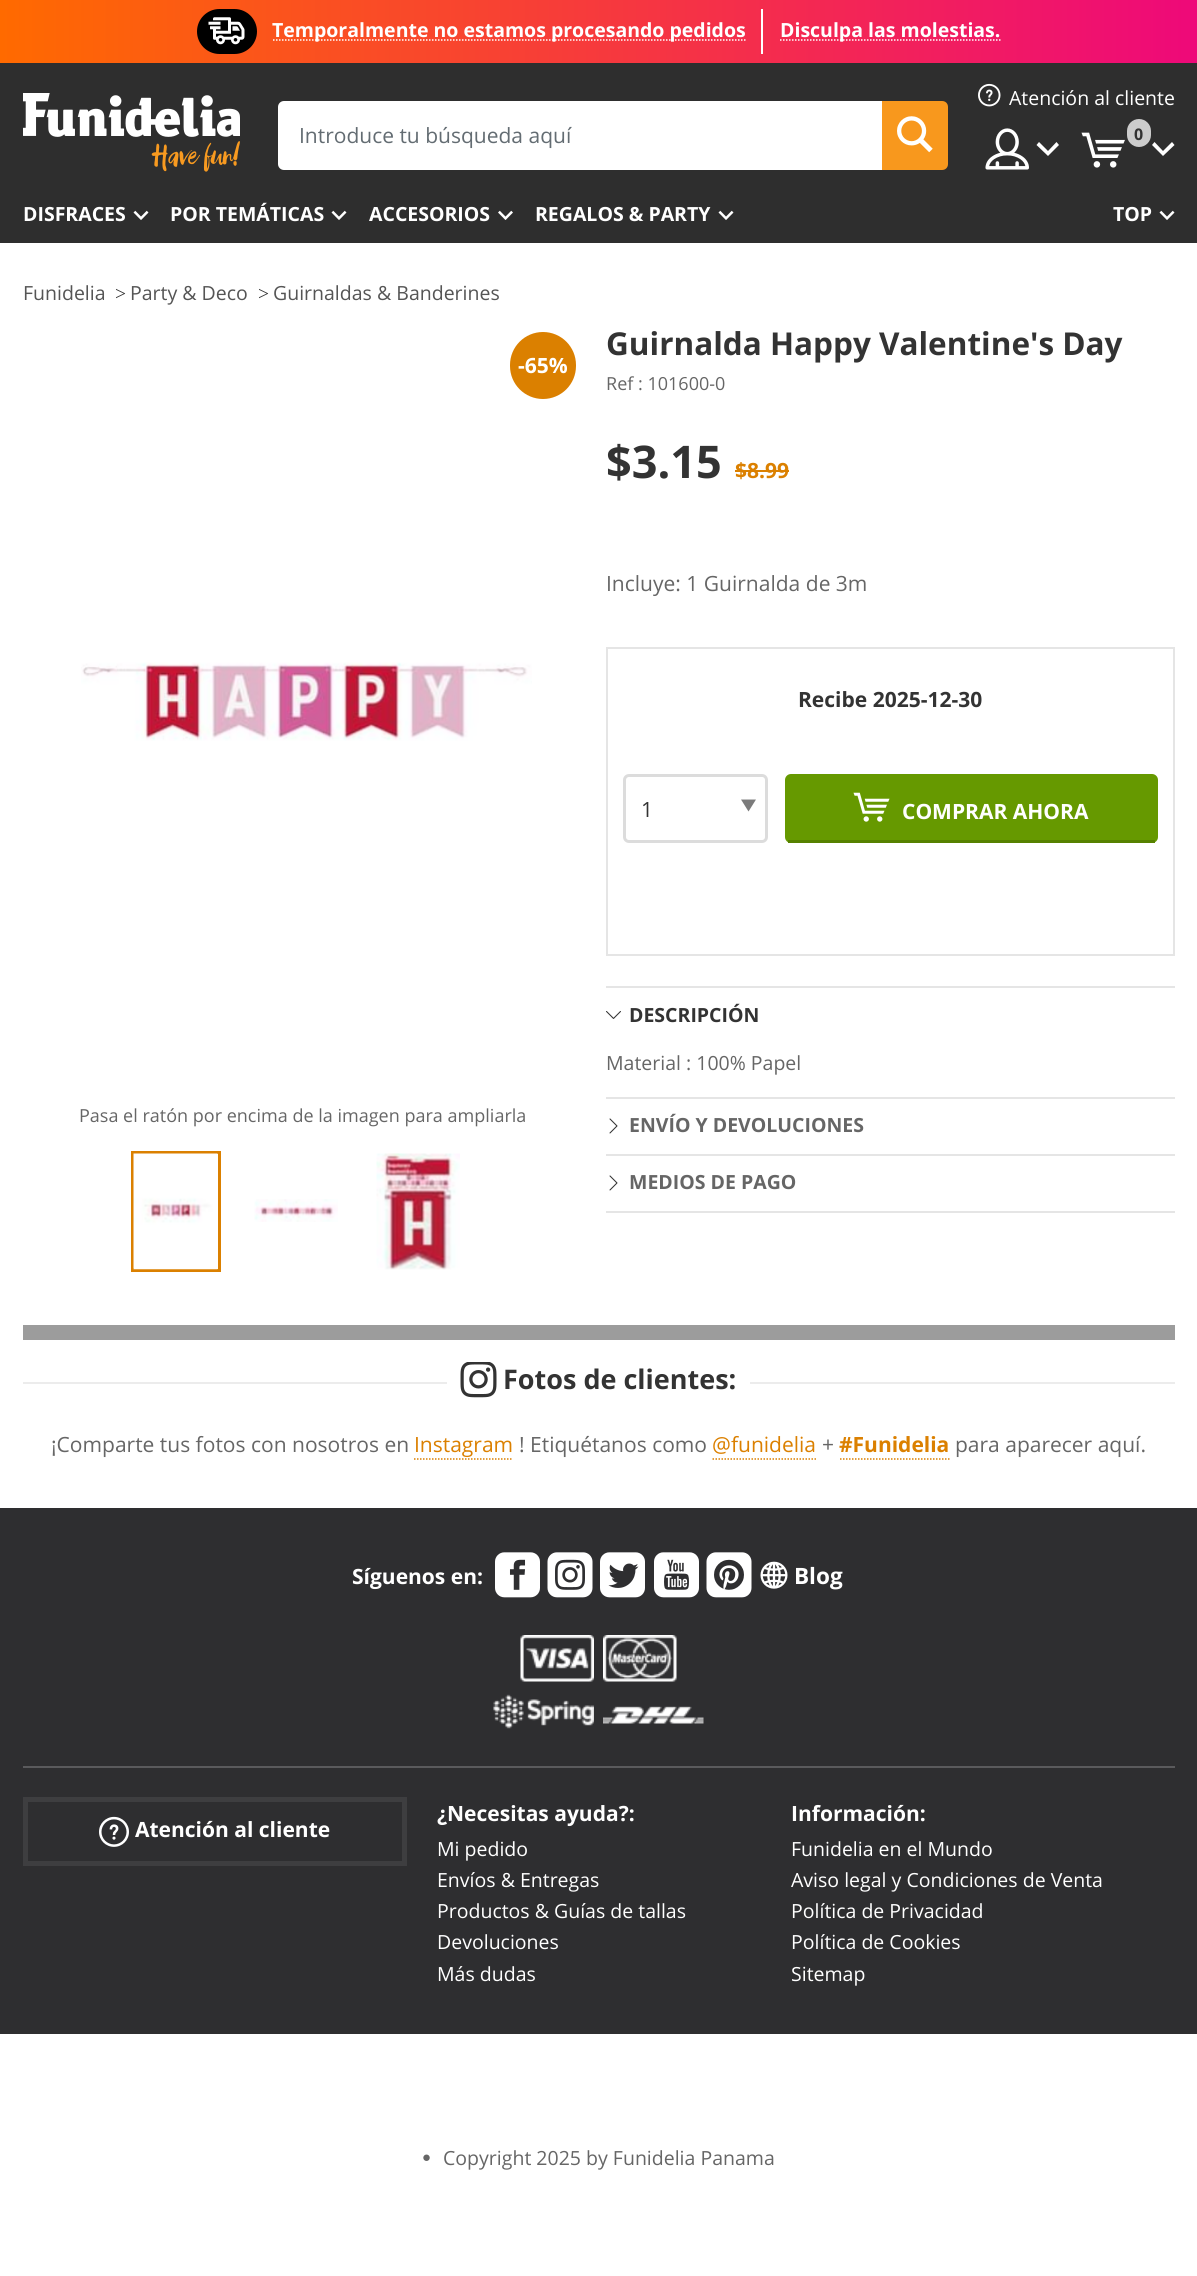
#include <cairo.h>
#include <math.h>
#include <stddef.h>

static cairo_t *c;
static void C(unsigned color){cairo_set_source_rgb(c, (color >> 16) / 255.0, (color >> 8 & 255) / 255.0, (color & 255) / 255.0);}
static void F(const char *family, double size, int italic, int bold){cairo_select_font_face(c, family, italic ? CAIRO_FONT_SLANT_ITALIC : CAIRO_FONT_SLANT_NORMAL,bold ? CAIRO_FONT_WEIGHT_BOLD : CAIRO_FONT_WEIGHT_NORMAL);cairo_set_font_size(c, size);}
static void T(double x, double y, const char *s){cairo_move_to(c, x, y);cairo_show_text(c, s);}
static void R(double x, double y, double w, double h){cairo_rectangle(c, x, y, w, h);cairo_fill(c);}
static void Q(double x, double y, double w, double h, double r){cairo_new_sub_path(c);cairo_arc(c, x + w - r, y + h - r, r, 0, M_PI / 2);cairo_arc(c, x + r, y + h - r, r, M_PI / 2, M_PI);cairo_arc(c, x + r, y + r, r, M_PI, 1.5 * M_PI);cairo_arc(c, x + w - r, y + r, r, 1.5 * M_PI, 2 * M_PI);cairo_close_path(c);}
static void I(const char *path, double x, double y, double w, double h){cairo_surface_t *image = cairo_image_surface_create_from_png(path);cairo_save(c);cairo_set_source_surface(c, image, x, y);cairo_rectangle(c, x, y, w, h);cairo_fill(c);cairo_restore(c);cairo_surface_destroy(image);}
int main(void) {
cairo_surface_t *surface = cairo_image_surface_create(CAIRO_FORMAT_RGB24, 1197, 2276);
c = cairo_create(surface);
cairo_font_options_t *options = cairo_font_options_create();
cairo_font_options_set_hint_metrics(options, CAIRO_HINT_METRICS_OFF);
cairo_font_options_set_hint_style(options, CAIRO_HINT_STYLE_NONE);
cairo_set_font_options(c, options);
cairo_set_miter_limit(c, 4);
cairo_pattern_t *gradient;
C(0xffffff);
cairo_paint(c);
C(0x2e2e2e);
R(0,63,1197,180);
gradient = cairo_pattern_create_linear(0,32,1197,31);
cairo_pattern_add_color_stop_rgba(gradient,0,1,0.416,0,1);
cairo_pattern_add_color_stop_rgba(gradient,1,0.933,0.035,0.475,1);
cairo_set_source(c,gradient);
cairo_pattern_destroy(gradient);
R(0,0,1197,63);
C(0xffffff);
R(761,9,2,45);
C(0x000000);
Q(197,9,60,45,22.5);
cairo_fill(c);
I("1.png",208,17,37,28);
cairo_new_path(c);
cairo_move_to(c,273,40);
cairo_line_to(c,745.5,40);
C(0xffffff);
cairo_set_line_width(c,1.5);
cairo_set_dash(c,(double[]){1.5,1.5},2,0);
cairo_stroke(c);
F("Open Sans",19.5,0,1);
T(272,37,"Temporalmente no estamos procesando pedidos");
cairo_new_path(c);
cairo_move_to(c,780,40);
cairo_line_to(c,1000.5,40);
cairo_stroke(c);
T(780,37,"Disculpa las molestias.");
I("2.png",23,93,217,79);
cairo_new_path(c);
cairo_move_to(c,284,102.5);
cairo_line_to(c,880.5,102.5);
cairo_line_to(c,880.5,168.5);
cairo_line_to(c,284,168.5);
cairo_curve_to(c,281.5,168.5,279.5,166.5,279.5,164);
cairo_line_to(c,279.5,107);
cairo_curve_to(c,279.5,104.5,281.5,102.5,284,102.5);
cairo_close_path(c);
cairo_fill_preserve(c);
cairo_set_line_width(c,3);
cairo_set_dash(c,NULL,0,0);
cairo_stroke(c);
F("Open Sans",21,0,0);
C(0x636c72);
T(299,143,"Introduce tu búsqueda aquí");
C(0xf8981d);
cairo_new_path(c);
cairo_move_to(c,882,101);
cairo_line_to(c,942,101);
cairo_curve_to(c,945.5,101,948,103.5,948,107);
cairo_line_to(c,948,164);
cairo_curve_to(c,948,167.5,945.5,170,942,170);
cairo_line_to(c,882,170);
cairo_close_path(c);
cairo_fill(c);
I("3.png",897,116,36,37);
I("4.png",978,83,23,24);
F("Open Sans",19.5,0,0);
C(0xffffff);
T(1009,105,"Atención al cliente");
I("5.png",985,128,44,42);
cairo_new_path(c);
cairo_move_to(c,1036.5,145);
cairo_line_to(c,1039,142);
cairo_line_to(c,1048,151);
cairo_line_to(c,1056.5,142);
cairo_line_to(c,1059,145);
cairo_line_to(c,1048,156);
cairo_close_path(c);
cairo_fill(c);
I("6.png",1081,132,44,36);
C(0xcccccc);
Q(1127,119,24,28,12);
cairo_fill(c);
F("Open Sans",16,0,1);
C(0x333333);
T(1134,140,"0");
C(0xffffff);
cairo_new_path(c);
cairo_move_to(c,1152,145);
cairo_line_to(c,1154.5,142);
cairo_line_to(c,1163,151);
cairo_line_to(c,1172,142);
cairo_line_to(c,1174.5,145);
cairo_line_to(c,1163,156);
cairo_close_path(c);
cairo_fill(c);
F("Open Sans",19.5,0,1);
T(23,221,"DISFRACES");
I("7.png",133,210,16,10);
T(170,221,"POR TEMÁTICAS");
I("7.png",331,210,16,10);
T(369,221,"ACCESORIOS");
I("8.png",498,210,15,10);
T(535,221,"REGALOS & PARTY");
I("7.png",718,210,16,10);
T(1113,221,"TOP");
I("7.png",1159,210,16,10);
F("Open Sans",19.5,0,0);
C(0x555555);
T(23,300,"Funidelia");
F("Liberation Serif",19.5,0,0);
C(0x333333);
T(115,300,">");
F("Open Sans",19.5,0,0);
C(0x555555);
T(130,300,"Party & Deco");
F("Liberation Serif",19.5,0,0);
C(0x333333);
T(258,300,">");
F("Open Sans",19.5,0,0);
C(0x555555);
T(273,300,"Guirnaldas & Banderines");
C(0xdb8000);
Q(510,332,66,67,33);
cairo_fill(c);
F("Open Sans",21,0,1);
C(0xffffff);
T(518,373,"-65%");
I("9.png",81,662,451,79);
F("Open Sans",18,0,0);
C(0x666666);
T(79,1122,"Pasa el ratón por encima de la imagen para ampliarla");
cairo_rectangle(c,132.5,1152.5,87,118);
C(0xdb8000);
cairo_stroke(c);
I("10.png",133,1153,85,117);
I("11.png",254,1199,84,23);
I("12.png",376,1153,84,117);
F("Open Sans",31.5,0,1);
C(0x333333);
T(606,355,"Guirnalda Happy Valentine's Day");
F("Open Sans",18,0,0);
C(0x666666);
T(606,390,"Ref : 101600-0");
F("Open Sans",45,0,1);
C(0x333333);
T(606,478,"$3.15");
F("Open Sans",21,0,1);
C(0xdb8000);
T(735,478,"$8.99");
R(735,470,54,2);
F("Open Sans",21,0,0);
C(0x666666);
T(606,591,"Incluye: 1 Guirnalda de 3m");
cairo_rectangle(c,607,648,567,307);
C(0xe5e5e5);
cairo_set_line_width(c,2);
cairo_stroke(c);
F("Open Sans",21,0,1);
C(0x333333);
T(798,707,"Recibe 2025-12-30");
Q(624.5,775.5,142,66,4.5);
C(0xdcdcdc);
cairo_set_line_width(c,3);
cairo_stroke(c);
F("Open Sans",21,0,0);
C(0x333333);
T(641,817,"1");
C(0x7b7b7b);
cairo_new_path(c);
cairo_move_to(c,741,799.5);
cairo_line_to(c,756,799.5);
cairo_line_to(c,748.5,811.5);
cairo_close_path(c);
cairo_fill(c);
C(0x669900);
Q(785,774,373,69,6);
cairo_fill(c);
C(0x568100);
R(788,840,367,3);
I("13.png",853,792,37,30);
F("Open Sans",21,0,1);
C(0xffffff);
T(902,819,"COMPRAR AHORA");
C(0xe5e5e5);
R(606,1211,569,2);
R(606,986,569,2);
I("14.png",606,1011,15,8);
F("Open Sans",19.5,0,1);
C(0x333333);
T(629,1022,"DESCRIPCIÓN");
F("Open Sans",19.5,0,0);
C(0x666666);
T(606,1070,"Material : 100% Papel");
C(0xe5e5e5);
R(606,1097,569,2);
I("15.png",609,1118,9,16);
F("Open Sans",19.5,0,1);
C(0x666666);
T(629,1132,"ENVÍO Y DEVOLUCIONES");
C(0xe5e5e5);
R(606,1154,569,2);
I("15.png",609,1175,9,16);
C(0x666666);
T(629,1189,"MEDIOS DE PAGO");
C(0x9c9c9c);
R(23,1325,1152,15);
C(0xececec);
R(23,1382,424,2);
I("16.png",460,1362,37,36);
F("Open Sans",27,0,1);
C(0x333333);
T(503,1389,"Fotos de clientes:");
C(0xececec);
R(750,1382,425,2);
F("Open Sans",21,0,0);
C(0x666666);
T(51,1452,"¡Comparte tus fotos con nosotros en");
C(0xdb8000);
T(414,1452,"Instagram");
cairo_new_path(c);
cairo_move_to(c,414,1459);
cairo_line_to(c,513,1459);
cairo_set_line_width(c,1.5);
cairo_set_dash(c,(double[]){1.5,1.5},2,0);
cairo_stroke(c);
C(0x666666);
T(519,1452,"! Etiquétanos como");
C(0xdb8000);
T(712,1452,"@funidelia");
cairo_new_path(c);
cairo_move_to(c,712.5,1459);
cairo_line_to(c,816,1459);
cairo_stroke(c);
C(0x666666);
T(822,1452,"+");
F("Open Sans",21,0,1);
C(0xdb8000);
T(839,1452,"#Funidelia");
cairo_new_path(c);
cairo_move_to(c,840,1459);
cairo_line_to(c,949.5,1459);
cairo_stroke(c);
F("Open Sans",21,0,0);
C(0x666666);
T(955,1452,"para aparecer aquí.");
C(0x2e2e30);
R(0,1508,1197,526);
C(0x5a5a5c);
R(23,1766,1152,2);
F("Open Sans",21,0,1);
C(0xffffff);
T(352,1584,"Síguenos en:");
I("17.png",495,1552,45,46);
I("18.png",547,1552,46,46);
I("19.png",600,1552,45,46);
I("20.png",654,1552,45,46);
I("21.png",706,1552,46,46);
I("22.png",760,1561,28,28);
F("Open Sans",22.5,0,1);
T(794,1584,"Blog");
I("23.png",520,1635,74,47);
I("24.png",603,1635,74,47);
I("25.png",493,1694,101,35);
I("26.png",603,1706,101,18);
cairo_rectangle(c,25.5,1799.5,379,64);
C(0x3e3e40);
cairo_set_line_width(c,5);
cairo_set_dash(c,NULL,0,0);
cairo_stroke(c);
I("27.png",99,1816,30,31);
F("Open Sans",21,0,1);
C(0xffffff);
T(135,1837,"Atención al cliente");
T(437,1821,"¿Necesitas ayuda?:");
F("Open Sans",19.5,0,0);
T(437,1856,"Mi pedido");
T(437,1887,"Envíos & Entregas");
T(437,1918,"Productos & Guías de tallas");
T(437,1949,"Devoluciones");
T(437,1981,"Más dudas");
F("Open Sans",21,0,1);
T(791,1821,"Información:");
F("Open Sans",19.5,0,0);
T(791,1856,"Funidelia en el Mundo");
T(791,1887,"Aviso legal y Condiciones de Venta");
T(791,1918,"Política de Privacidad");
T(791,1949,"Política de Cookies");
T(791,1981,"Sitemap");
F("Liberation Sans",15,0,0);
C(0x666666);
T(422,2162,"●");
F("Open Sans",19.5,0,0);
T(443,2165,"Copyright 2025 by Funidelia Panama");
cairo_surface_write_to_png(surface, "o.png");
cairo_font_options_destroy(options);
cairo_destroy(c);
cairo_surface_destroy(surface);
return 0;
}
